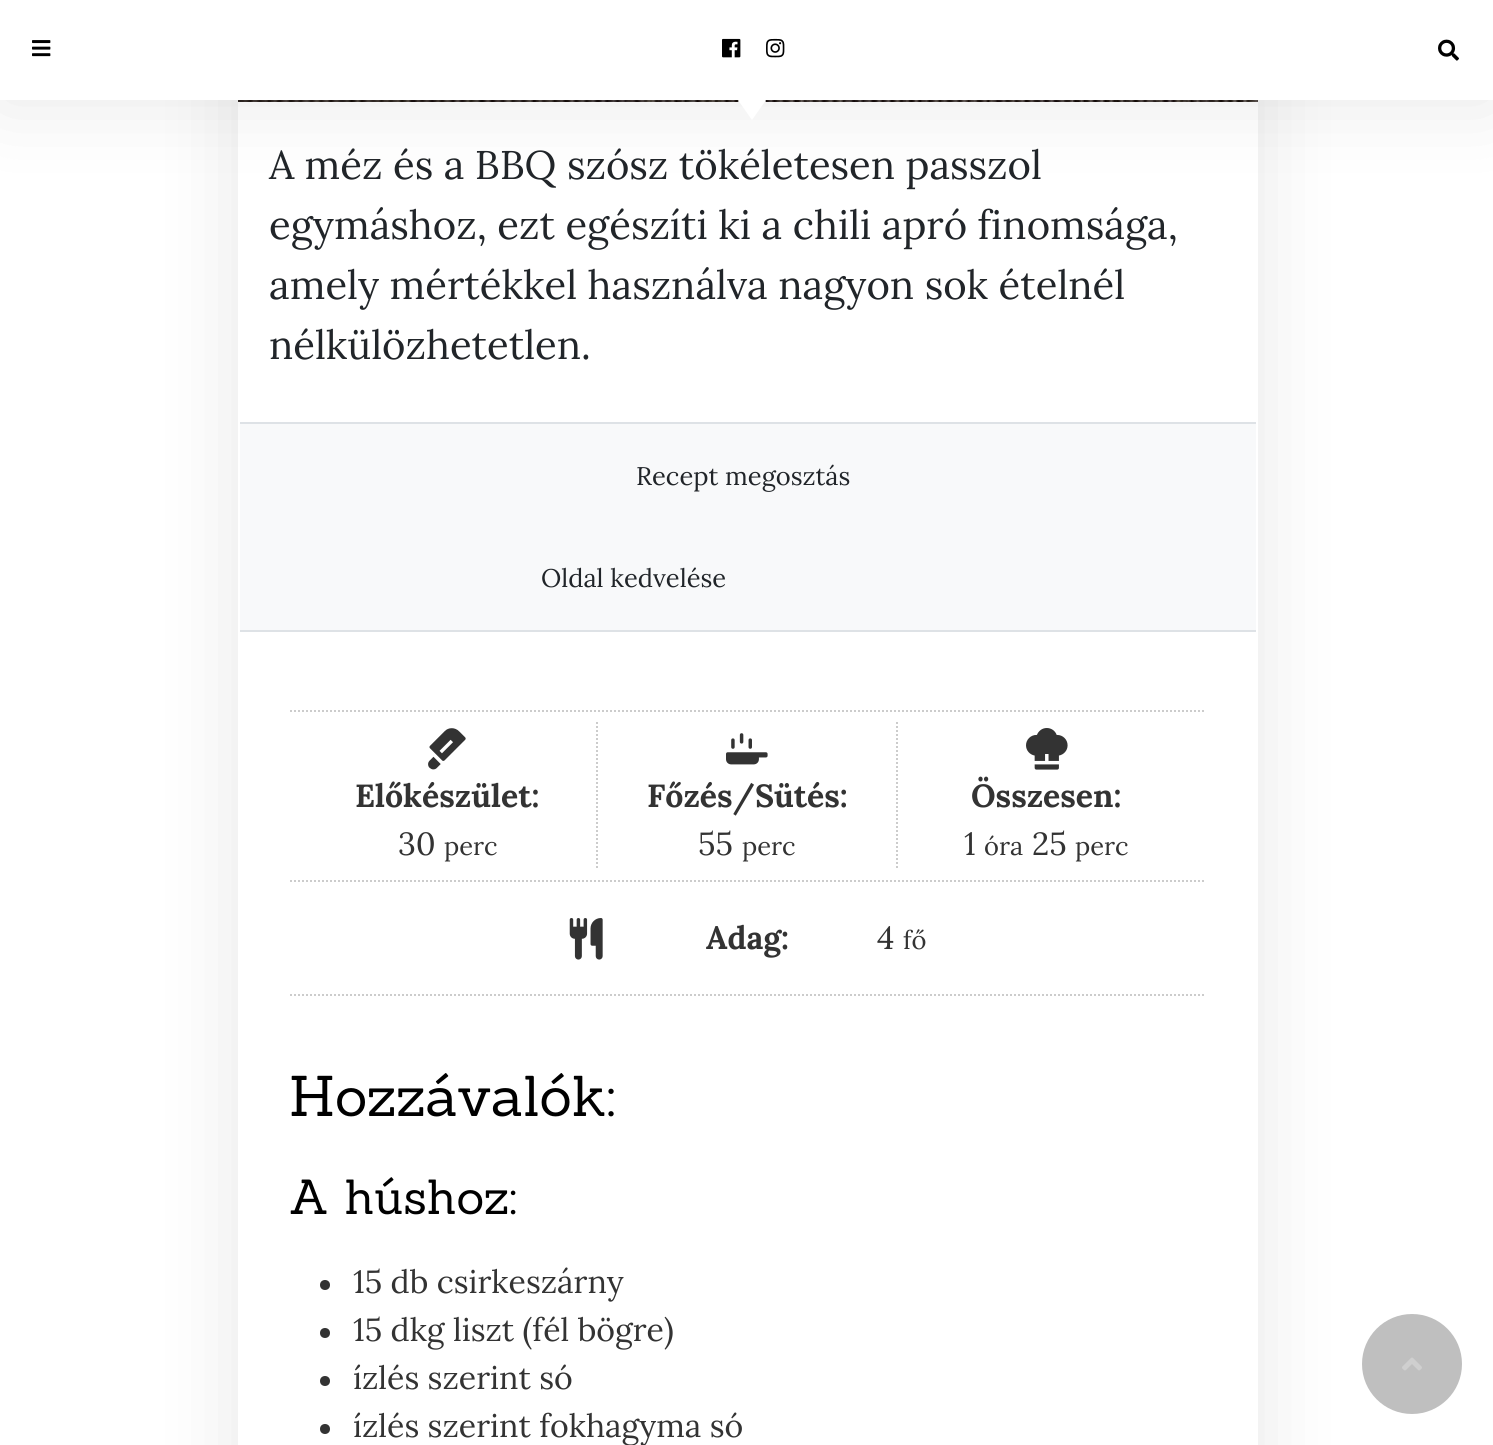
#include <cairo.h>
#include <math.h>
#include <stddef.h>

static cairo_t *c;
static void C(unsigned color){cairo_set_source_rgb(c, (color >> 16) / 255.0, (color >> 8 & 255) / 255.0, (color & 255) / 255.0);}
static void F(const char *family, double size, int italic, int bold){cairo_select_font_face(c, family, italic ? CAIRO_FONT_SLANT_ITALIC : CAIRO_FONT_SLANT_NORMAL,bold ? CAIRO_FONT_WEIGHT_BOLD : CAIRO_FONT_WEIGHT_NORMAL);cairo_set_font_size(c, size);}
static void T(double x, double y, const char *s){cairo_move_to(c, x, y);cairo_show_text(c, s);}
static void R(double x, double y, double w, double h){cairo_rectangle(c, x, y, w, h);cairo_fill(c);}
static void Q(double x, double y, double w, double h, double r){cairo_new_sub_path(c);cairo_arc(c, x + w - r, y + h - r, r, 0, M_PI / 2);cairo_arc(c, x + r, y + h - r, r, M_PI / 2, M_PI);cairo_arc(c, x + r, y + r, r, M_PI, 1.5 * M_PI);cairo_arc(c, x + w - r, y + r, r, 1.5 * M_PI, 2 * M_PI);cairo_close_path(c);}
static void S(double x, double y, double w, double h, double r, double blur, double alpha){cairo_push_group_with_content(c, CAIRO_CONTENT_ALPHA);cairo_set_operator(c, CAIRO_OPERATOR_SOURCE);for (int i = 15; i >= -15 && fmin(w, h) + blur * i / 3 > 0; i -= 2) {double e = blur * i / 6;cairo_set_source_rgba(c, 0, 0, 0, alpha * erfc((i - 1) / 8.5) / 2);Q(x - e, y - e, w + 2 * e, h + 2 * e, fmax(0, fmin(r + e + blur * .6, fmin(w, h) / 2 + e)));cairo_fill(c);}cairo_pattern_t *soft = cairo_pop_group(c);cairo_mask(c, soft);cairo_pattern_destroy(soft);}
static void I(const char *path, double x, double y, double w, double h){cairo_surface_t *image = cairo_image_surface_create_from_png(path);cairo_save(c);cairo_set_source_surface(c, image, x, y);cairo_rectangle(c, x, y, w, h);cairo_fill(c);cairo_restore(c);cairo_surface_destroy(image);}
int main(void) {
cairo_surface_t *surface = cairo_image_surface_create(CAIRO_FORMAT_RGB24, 1493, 1445);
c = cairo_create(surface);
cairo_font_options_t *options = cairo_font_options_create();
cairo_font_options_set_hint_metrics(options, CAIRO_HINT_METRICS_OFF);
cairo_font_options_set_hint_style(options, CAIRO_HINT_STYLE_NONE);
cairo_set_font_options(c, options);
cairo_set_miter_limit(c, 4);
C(0xffffff);
cairo_paint(c);
cairo_save(c);
cairo_set_fill_rule(c,CAIRO_FILL_RULE_EVEN_ODD);
cairo_new_path(c);
cairo_move_to(c,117,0);
cairo_line_to(c,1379,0);
cairo_line_to(c,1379,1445);
cairo_line_to(c,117,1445);
cairo_close_path(c);
cairo_move_to(c,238,-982);
cairo_line_to(c,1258,-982);
cairo_line_to(c,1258,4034);
cairo_line_to(c,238,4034);
cairo_close_path(c);
cairo_clip(c);
C(0x000000);
S(238,-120,1020,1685,0,40,.1);
cairo_restore(c);
I("5.png",238,100,1020,2);
C(0xf9f9f9);
cairo_new_path(c);
cairo_move_to(c,766,102);
cairo_line_to(c,738,102);
cairo_line_to(c,752,82);
cairo_close_path(c);
cairo_fill(c);
C(0x000000);
S(0,0,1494,100,0,40,.1);
C(0xffffff);
R(0,0,1493,100);
I("1.png",32,40,19,17);
I("2.png",722,38,19,20);
I("3.png",766,38,19,20);
I("4.png",1438,39,21,22);
cairo_new_path(c);
cairo_move_to(c,738,100);
cairo_line_to(c,766,100);
cairo_line_to(c,752,120);
cairo_close_path(c);
cairo_fill(c);
F("Lora",40,0,0);
C(0x212529);
T(269,179,"A méz és a BBQ szósz tökéletesen passzol");
T(269,239,"egymáshoz, ezt egészíti ki a chili apró finomsága,");
T(269,299,"amely mértékkel használva nagyon sok ételnél");
T(269,359,"nélkülözhetetlen.");
C(0xf8f9fa);
R(240,424,1016,206);
C(0xdee2e6);
R(240,422,1016,2);
R(240,630,1016,2);
F("Lora",25.5,0,0);
C(0x212529);
T(636,485,"Recept megosztás");
T(541,587,"Oldal kedvelése");
cairo_new_path(c);
cairo_move_to(c,290,711);
cairo_line_to(c,1206,711);
C(0xcccccc);
cairo_set_dash(c,(double[]){2,2},2,0);
cairo_stroke(c);
cairo_new_path(c);
cairo_move_to(c,290,881);
cairo_line_to(c,1206,881);
cairo_stroke(c);
I("6.png",428,728,38,42);
F("Lora",32,0,1);
C(0x333333);
T(355,807,"Előkészület:");
F("Lora",32,0,0);
T(398,855,"30");
F("Lora",25.5,0,0);
T(444,855,"perc");
cairo_new_path(c);
cairo_move_to(c,597,722);
cairo_line_to(c,597,870);
C(0xcccccc);
cairo_stroke(c);
I("7.png",726,733,42,32);
F("Lora",32,0,1);
C(0x333333);
T(647,807,"Főzés/Sütés:");
F("Lora",32,0,0);
T(698,855,"55");
F("Lora",25.5,0,0);
T(742,855,"perc");
cairo_new_path(c);
cairo_move_to(c,897,722);
cairo_line_to(c,897,870);
C(0xcccccc);
cairo_stroke(c);
I("8.png",1026,728,42,42);
F("Lora",32,0,1);
C(0x333333);
T(971,807,"Összesen:");
F("Lora",32,0,0);
T(964,855,"1");
F("Lora",25.5,0,0);
T(984,855,"óra");
F("Lora",32,0,0);
T(1032,855,"25");
F("Lora",25.5,0,0);
T(1075,855,"perc");
cairo_new_path(c);
cairo_move_to(c,290,995);
cairo_line_to(c,1206,995);
C(0xcccccc);
cairo_stroke(c);
I("9.png",569,918,34,42);
F("Lora",32,0,1);
C(0x333333);
T(706,949,"Adag:");
F("Lora",32,0,0);
T(877,949,"4");
F("Lora",25.5,0,0);
T(903,949,"fő");
F("Sanchez",56,0,0);
C(0x000000);
T(289,1116,"Hozzávalók:");
F("Sanchez",48,0,0);
T(289,1214,"A húshoz:");
C(0x333333);
cairo_new_path(c);
cairo_arc(c,325,1285,5,0,2 * M_PI);
cairo_fill(c);
F("Lora",32,0,0);
T(353,1293,"15 db csirkeszárny");
cairo_new_path(c);
cairo_arc(c,325,1333,5,0,2 * M_PI);
cairo_fill(c);
T(353,1341,"15 dkg liszt (fél bögre)");
cairo_new_path(c);
cairo_arc(c,325,1381,5,0,2 * M_PI);
cairo_fill(c);
T(353,1389,"ízlés szerint só");
cairo_new_path(c);
cairo_arc(c,325,1429,5,0,2 * M_PI);
cairo_fill(c);
T(353,1437,"ízlés szerint fokhagyma só");
C(0xbfbfbf);
cairo_new_path(c);
cairo_arc(c,1412,1364,50,0,2 * M_PI);
cairo_fill(c);
I("10.png",1402,1357,20,14);
cairo_surface_write_to_png(surface, "o.png");
cairo_font_options_destroy(options);
cairo_destroy(c);
cairo_surface_destroy(surface);
return 0;
}
